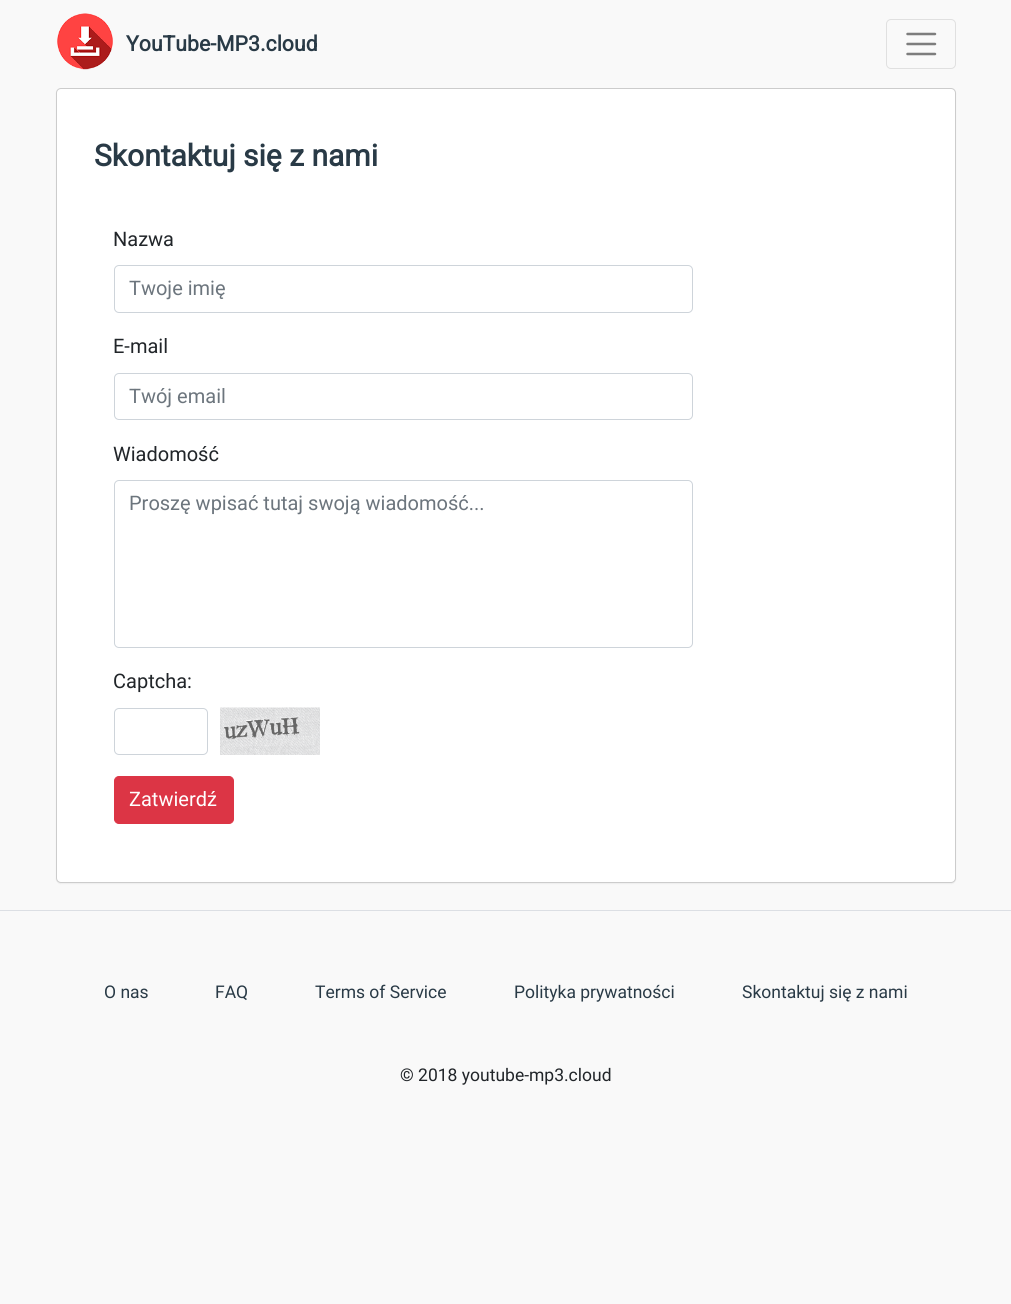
#include <cairo.h>
#include <math.h>
#include <stddef.h>

static cairo_t *c;
static void C(unsigned color){cairo_set_source_rgb(c, (color >> 16) / 255.0, (color >> 8 & 255) / 255.0, (color & 255) / 255.0);}
static void F(const char *family, double size, int italic, int bold){cairo_select_font_face(c, family, italic ? CAIRO_FONT_SLANT_ITALIC : CAIRO_FONT_SLANT_NORMAL,bold ? CAIRO_FONT_WEIGHT_BOLD : CAIRO_FONT_WEIGHT_NORMAL);cairo_set_font_size(c, size);}
static void T(double x, double y, const char *s){cairo_move_to(c, x, y);cairo_show_text(c, s);}
static void R(double x, double y, double w, double h){cairo_rectangle(c, x, y, w, h);cairo_fill(c);}
static void Q(double x, double y, double w, double h, double r){cairo_new_sub_path(c);cairo_arc(c, x + w - r, y + h - r, r, 0, M_PI / 2);cairo_arc(c, x + r, y + h - r, r, M_PI / 2, M_PI);cairo_arc(c, x + r, y + r, r, M_PI, 1.5 * M_PI);cairo_arc(c, x + w - r, y + r, r, 1.5 * M_PI, 2 * M_PI);cairo_close_path(c);}
static void S(double x, double y, double w, double h, double r, double blur, double alpha){cairo_push_group_with_content(c, CAIRO_CONTENT_ALPHA);cairo_set_operator(c, CAIRO_OPERATOR_SOURCE);for (int i = 15; i >= -15 && fmin(w, h) + blur * i / 3 > 0; i -= 2) {double e = blur * i / 6;cairo_set_source_rgba(c, 0, 0, 0, alpha * erfc((i - 1) / 8.5) / 2);Q(x - e, y - e, w + 2 * e, h + 2 * e, fmax(0, fmin(r + e + blur * .6, fmin(w, h) / 2 + e)));cairo_fill(c);}cairo_pattern_t *soft = cairo_pop_group(c);cairo_mask(c, soft);cairo_pattern_destroy(soft);}
static void I(const char *path, double x, double y, double w, double h){cairo_surface_t *image = cairo_image_surface_create_from_png(path);cairo_save(c);cairo_set_source_surface(c, image, x, y);cairo_rectangle(c, x, y, w, h);cairo_fill(c);cairo_restore(c);cairo_surface_destroy(image);}
int main(void) {
cairo_surface_t *surface = cairo_image_surface_create(CAIRO_FORMAT_RGB24, 1011, 1304);
c = cairo_create(surface);
cairo_font_options_t *options = cairo_font_options_create();
cairo_font_options_set_hint_metrics(options, CAIRO_HINT_METRICS_OFF);
cairo_font_options_set_hint_style(options, CAIRO_HINT_STYLE_NONE);
cairo_set_font_options(c, options);
cairo_set_miter_limit(c, 4);
C(0xf9f9f9);
cairo_paint(c);
I("1.png",57,13,56,57);
F("Roboto",21.25,0,1);
C(0x293a46);
T(126,51,"YouTube-MP3.cloud");
Q(886.5,19.5,69,49,4.5);
C(0xe0e0e0);
cairo_set_line_width(c,1);
cairo_stroke(c);
cairo_new_path(c);
cairo_move_to(c,907.5,34);
cairo_line_to(c,935,34);
cairo_move_to(c,907.5,44);
cairo_line_to(c,935,44);
cairo_move_to(c,907.5,54);
cairo_line_to(c,935,54);
C(0x7d7d7d);
cairo_set_line_width(c,2.5);
cairo_set_line_cap(c,CAIRO_LINE_CAP_ROUND);
cairo_stroke(c);
C(0x000000);
S(56,89,900,795,5,.5,.05);
C(0xffffff);
Q(56.5,88.5,899,794,4.5);
cairo_fill_preserve(c);
C(0xcccccc);
cairo_set_line_width(c,1);
cairo_set_line_cap(c,CAIRO_LINE_CAP_BUTT);
cairo_stroke(c);
F("Roboto",30,0,1);
C(0x293a46);
T(94,166,"Skontaktuj się z nami");
F("Roboto",20,0,0);
C(0x212529);
T(113,246,"Nazwa");
Q(114.5,265.5,578,47,4.5);
C(0xced4da);
cairo_stroke(c);
C(0x6c757d);
T(129,295,"Twoje imię");
C(0x212529);
T(113,353,"E-mail");
Q(114.5,373.5,578,46,4.5);
C(0xced4da);
cairo_stroke(c);
C(0x6c757d);
T(129,403,"Twój email");
C(0x212529);
T(113,461,"Wiadomość");
Q(114.5,480.5,578,167,4.5);
C(0xced4da);
cairo_stroke(c);
C(0x6c757d);
T(129,510,"Proszę wpisać tutaj swoją wiadomość...");
C(0x212529);
T(113,688,"Captcha:");
Q(114.5,708.5,93,46,4.5);
C(0xced4da);
cairo_stroke(c);
I("2.png",220,707,100,48);
C(0xdc3545);
Q(114.5,776.5,119,47,4.5);
cairo_fill_preserve(c);
cairo_stroke(c);
C(0xffffff);
T(129,806,"Zatwierdź");
C(0xdcdfe4);
R(0,910,1011,1);
F("Roboto",17.5,0,0);
C(0x293a46);
T(104,998,"O nas");
T(215,998,"FAQ");
T(315,998,"Terms of Service");
T(514,998,"Polityka prywatności");
T(742,998,"Skontaktuj się z nami");
C(0x212529);
T(400,1081,"© 2018 youtube-mp3.cloud");
cairo_surface_write_to_png(surface, "o.png");
cairo_font_options_destroy(options);
cairo_destroy(c);
cairo_surface_destroy(surface);
return 0;
}
